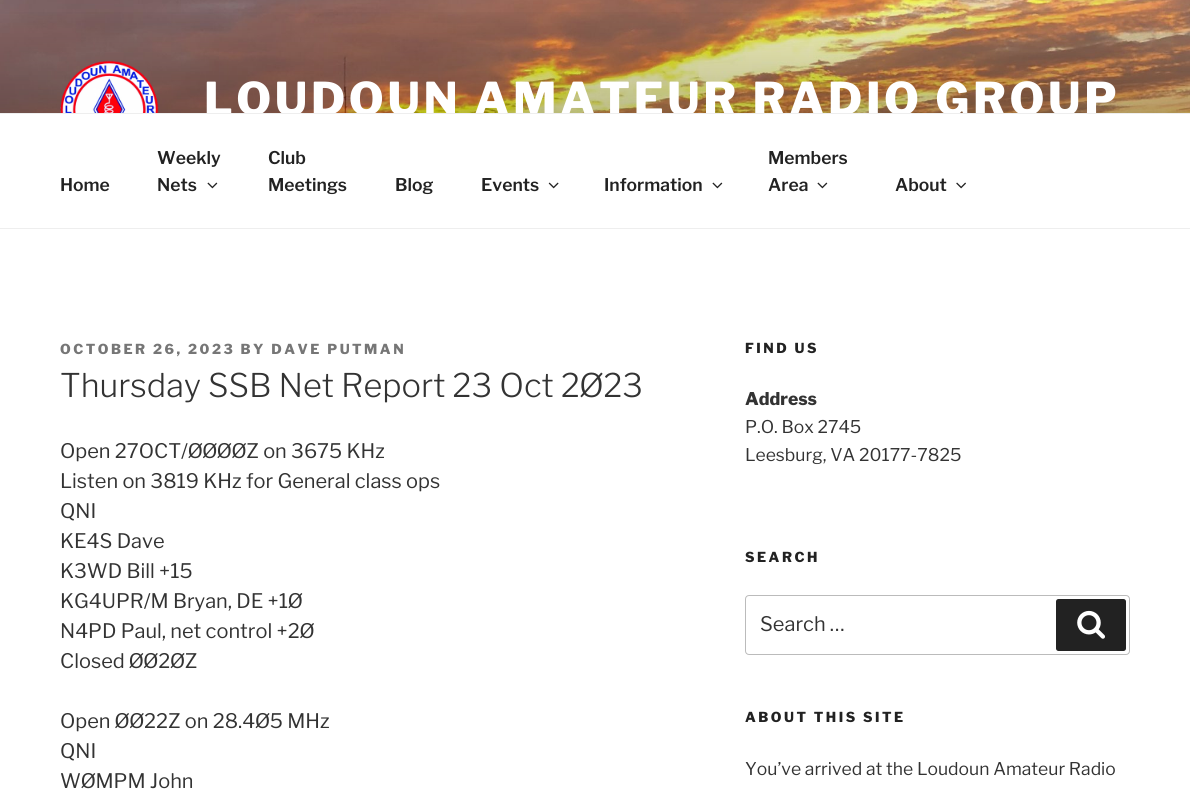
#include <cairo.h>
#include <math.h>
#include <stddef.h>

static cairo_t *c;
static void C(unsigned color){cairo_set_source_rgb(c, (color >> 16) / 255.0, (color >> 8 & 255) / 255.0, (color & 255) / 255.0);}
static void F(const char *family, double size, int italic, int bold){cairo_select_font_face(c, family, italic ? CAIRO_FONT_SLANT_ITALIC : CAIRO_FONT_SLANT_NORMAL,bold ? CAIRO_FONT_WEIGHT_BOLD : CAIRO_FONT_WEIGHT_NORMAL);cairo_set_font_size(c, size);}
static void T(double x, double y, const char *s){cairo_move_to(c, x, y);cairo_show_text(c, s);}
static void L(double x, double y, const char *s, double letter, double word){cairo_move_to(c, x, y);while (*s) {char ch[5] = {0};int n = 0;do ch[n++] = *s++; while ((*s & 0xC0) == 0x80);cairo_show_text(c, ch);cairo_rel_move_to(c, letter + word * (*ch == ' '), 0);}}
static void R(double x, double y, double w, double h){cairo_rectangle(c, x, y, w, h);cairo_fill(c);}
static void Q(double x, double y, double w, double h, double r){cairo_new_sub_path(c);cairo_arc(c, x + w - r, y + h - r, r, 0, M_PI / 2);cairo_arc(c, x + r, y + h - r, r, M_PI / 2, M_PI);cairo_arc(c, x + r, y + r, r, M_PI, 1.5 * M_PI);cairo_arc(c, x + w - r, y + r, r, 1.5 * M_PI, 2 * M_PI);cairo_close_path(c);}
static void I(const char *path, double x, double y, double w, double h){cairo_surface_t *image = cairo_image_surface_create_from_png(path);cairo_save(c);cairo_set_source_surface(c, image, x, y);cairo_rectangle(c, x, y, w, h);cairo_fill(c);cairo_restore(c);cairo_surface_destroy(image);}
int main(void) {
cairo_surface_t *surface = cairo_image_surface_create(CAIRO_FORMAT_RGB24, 1190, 794);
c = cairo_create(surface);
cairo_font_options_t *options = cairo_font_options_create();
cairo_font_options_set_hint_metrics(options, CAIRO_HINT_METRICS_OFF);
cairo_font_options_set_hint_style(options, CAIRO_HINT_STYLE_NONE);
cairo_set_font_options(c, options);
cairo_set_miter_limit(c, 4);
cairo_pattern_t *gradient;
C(0xffffff);
cairo_paint(c);
I("1.png",0,0,1190,113);
gradient = cairo_pattern_create_linear(595,0,595,229);
cairo_pattern_add_color_stop_rgba(gradient,0,0,0,0,0);
cairo_pattern_add_color_stop_rgba(gradient,.75,0,0,0,.3);
cairo_pattern_add_color_stop_rgba(gradient,1,0,0,0,.3);
cairo_set_source(c,gradient);
cairo_pattern_destroy(gradient);
R(0,12,1190,101);
I("2.png",60,60,99,53);
F("Libre Franklin Thin",45,0,0);
C(0xffffff);
L(204,115,"LOUDOUN AMATEUR RADIO GROUP",3.6,0);
C(0xeeeeee);
R(0,113,1190,1);
R(0,228,1190,1);
F("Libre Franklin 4 Thin",17.5,0,0);
C(0x222222);
T(60,191,"Home");
T(157,164,"Weekly");
T(157,191,"Nets");
I("3.png",207,182,11,7);
T(268,164,"Club");
T(268,191,"Meetings");
T(395,191,"Blog");
T(481,191,"Events");
I("4.png",548,182,11,7);
T(604,191,"Information");
I("3.png",712,182,11,7);
T(768,164,"Members");
T(768,191,"Area");
I("3.png",817,182,11,7);
T(895,191,"About");
I("5.png",956,182,10,7);
F("Libre Franklin Thin",13.75,0,0);
C(0x767676);
L(60,354,"OCTOBER 26, 2023 BY DAVE PUTMAN",2.5,0);
F("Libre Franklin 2 Thin",32.5,0,0);
C(0x333333);
T(60,397,"Thursday SSB Net Report 23 Oct 2Ø23");
F("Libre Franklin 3 Thin",20,0,0);
T(60,458,"Open 27OCT/ØØØØZ on 3675 KHz");
T(60,488,"Listen on 3819 KHz for General class ops");
T(60,518,"QNI");
T(60,548,"KE4S Dave");
T(60,578,"K3WD Bill +15");
T(60,608,"KG4UPR/M Bryan, DE +1Ø");
T(60,638,"N4PD Paul, net control +2Ø");
T(60,668,"Closed ØØ2ØZ");
T(60,728,"Open ØØ22Z on 28.4Ø5 MHz");
T(60,758,"QNI");
T(60,788,"WØMPM John");
F("Libre Franklin Thin",13.75,0,0);
C(0x222222);
L(745,353,"FIND US",2.5,0);
F("Libre Franklin Thin",17.5,0,0);
C(0x333333);
T(745,405,"Address");
F("Libre Franklin 3 Thin",17.5,0,0);
T(745,433,"P.O. Box 2745");
T(745,461,"Leesburg, VA 20177-7825");
F("Libre Franklin Thin",13.75,0,0);
C(0x222222);
L(745,562,"SEARCH",2.5,0);
Q(745.5,595.5,384,59,3.5);
C(0xbbbbbb);
cairo_set_line_width(c,1);
cairo_stroke(c);
F("Libre Franklin 3 Thin",20,0,0);
C(0x333333);
T(760,631,"Search …");
C(0x222222);
Q(1056,599,70,52,2.5);
cairo_fill(c);
I("6.png",1077,610,28,29);
F("Libre Franklin Thin",13.75,0,0);
L(745,722,"ABOUT THIS SITE",2.5,0);
F("Libre Franklin 3 Thin",17.5,0,0);
C(0x333333);
T(745,775,"You’ve arrived at the Loudoun Amateur Radio");
cairo_surface_write_to_png(surface, "o.png");
cairo_font_options_destroy(options);
cairo_destroy(c);
cairo_surface_destroy(surface);
return 0;
}
